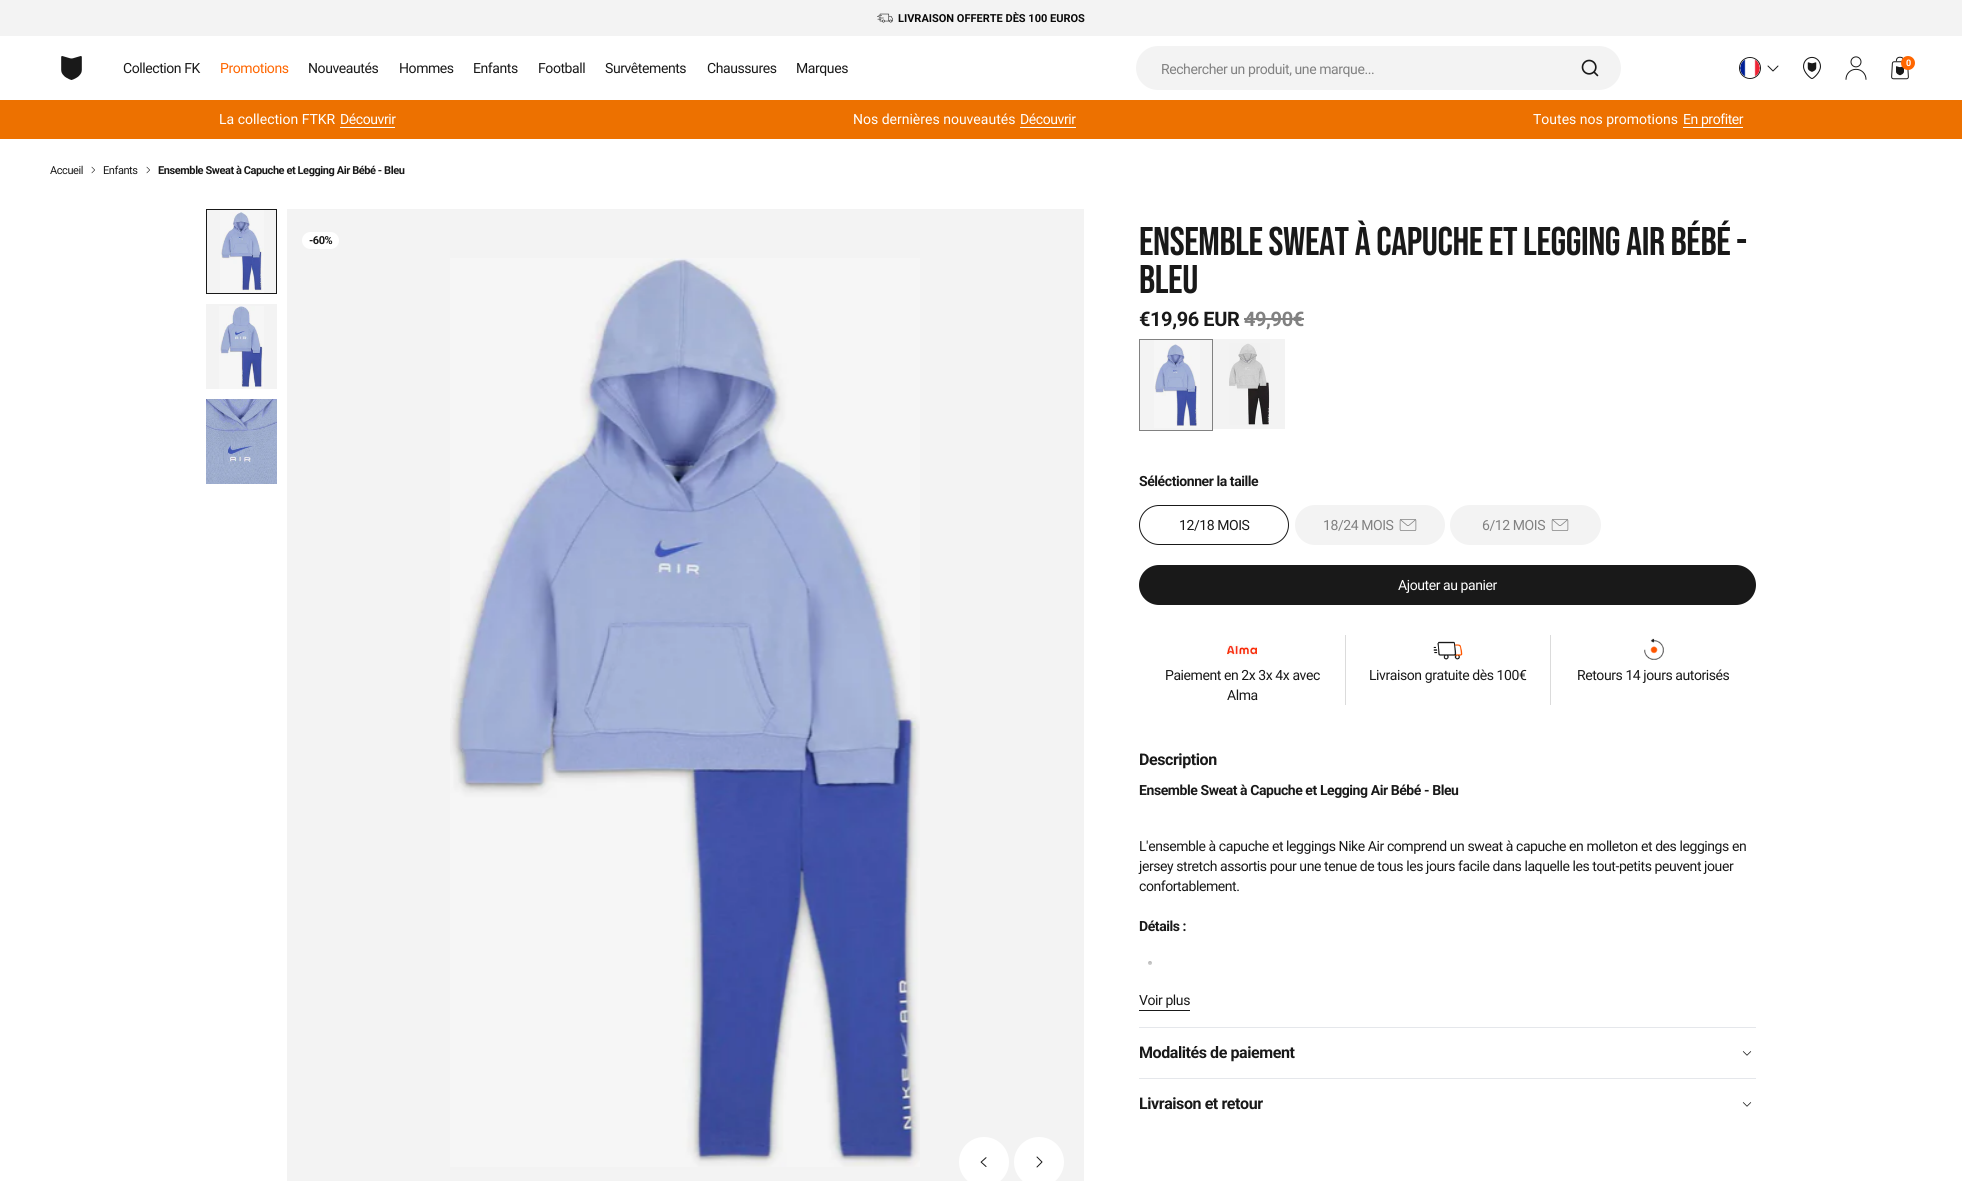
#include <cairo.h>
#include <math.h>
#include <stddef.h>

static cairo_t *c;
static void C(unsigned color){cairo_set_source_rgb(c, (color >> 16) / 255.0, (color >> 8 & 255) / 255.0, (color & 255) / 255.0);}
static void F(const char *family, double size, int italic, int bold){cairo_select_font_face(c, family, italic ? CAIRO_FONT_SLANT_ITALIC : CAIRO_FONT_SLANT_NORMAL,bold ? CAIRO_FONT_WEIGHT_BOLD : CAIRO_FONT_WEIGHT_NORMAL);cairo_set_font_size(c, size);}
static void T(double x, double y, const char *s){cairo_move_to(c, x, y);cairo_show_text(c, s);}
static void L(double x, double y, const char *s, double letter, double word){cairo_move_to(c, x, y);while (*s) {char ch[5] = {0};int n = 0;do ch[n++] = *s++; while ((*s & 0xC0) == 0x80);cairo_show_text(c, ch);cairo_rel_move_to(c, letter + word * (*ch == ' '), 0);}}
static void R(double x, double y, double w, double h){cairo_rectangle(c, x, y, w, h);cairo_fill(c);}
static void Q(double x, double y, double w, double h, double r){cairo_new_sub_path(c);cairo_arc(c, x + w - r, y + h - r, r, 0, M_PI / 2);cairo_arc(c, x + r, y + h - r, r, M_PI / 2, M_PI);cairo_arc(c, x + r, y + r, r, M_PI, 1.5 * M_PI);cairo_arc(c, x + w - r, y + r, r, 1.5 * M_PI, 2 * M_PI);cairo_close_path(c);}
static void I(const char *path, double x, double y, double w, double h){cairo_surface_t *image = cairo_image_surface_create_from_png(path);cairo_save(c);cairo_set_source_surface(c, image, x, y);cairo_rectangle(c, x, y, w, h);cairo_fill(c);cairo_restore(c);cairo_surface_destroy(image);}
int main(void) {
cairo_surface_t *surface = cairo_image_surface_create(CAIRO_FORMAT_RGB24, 1962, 1181);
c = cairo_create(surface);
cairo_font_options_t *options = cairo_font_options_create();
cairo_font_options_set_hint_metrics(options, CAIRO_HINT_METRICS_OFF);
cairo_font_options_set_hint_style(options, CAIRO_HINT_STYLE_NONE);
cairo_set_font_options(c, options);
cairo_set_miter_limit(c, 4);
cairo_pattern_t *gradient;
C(0xffffff);
cairo_paint(c);
C(0xf3f3f3);
R(0,0,1962,36);
I("1.png",877,13,16,10);
F("Roboto",11,0,1);
C(0x080808);
T(898,22,"LIVRAISON OFFERTE DÈS 100 EUROS");
I("2.png",61,56,21,24);
F("Roboto",14,0,0);
C(0x191919);
L(123,73,"Collection FK",-.42,0);
C(0xff6600);
L(220,73,"Promotions",-.42,0);
C(0x191919);
L(308,73,"Nouveautés",-.42,0);
L(399,73,"Hommes",-.42,0);
L(473,73,"Enfants",-.42,0);
L(538,73,"Football",-.42,0);
L(605,73,"Survêtements",-.42,0);
L(707,73,"Chaussures",-.42,0);
L(796,73,"Marques",-.42,0);
C(0xf3f3f3);
Q(1136,46,485,44,22);
cairo_fill(c);
C(0x818181);
L(1161,74,"Rechercher un produit, une marque...",-.42,0);
I("3.png",1581,59,18,18);
cairo_arc(c,1750,68,10.5,0,2 * M_PI);
C(0x191919);
cairo_set_line_width(c,1);
cairo_stroke(c);
I("4.png",1740,58,20,20);
I("5.png",1767,65,12,7);
I("6.png",1803,56,18,23);
I("7.png",1845,56,22,24);
I("8.png",1891,56,18,24);
C(0xff6600);
cairo_arc(c,1908,63,7,0,2 * M_PI);
cairo_fill(c);
F("Roboto",9,0,1);
C(0xffffff);
T(1906,66,"0");
C(0xed7100);
R(0,100,1962,39);
F("Roboto",14,0,0);
C(0xffffff);
T(219,124,"La collection FTKR");
L(340,124,"Découvrir",-.42,0);
R(340,127,55,1);
T(853,124,"Nos dernières nouveautés");
L(1020,124,"Découvrir",-.42,0);
R(1020,127,56,1);
T(1533,124,"Toutes nos promotions");
L(1683,124,"En profiter",-.42,0);
R(1683,127,60,1);
F("Roboto",11,0,0);
C(0x191919);
L(50,174,"Accueil",-.42,0);
I("9.png",91,166,4,8);
L(103,174,"Enfants",-.42,0);
I("9.png",146,166,4,8);
F("Roboto",11,0,1);
L(158,174,"Ensemble Sweat à Capuche et Legging Air Bébé - Bleu",-.42,0);
cairo_rectangle(c,206.5,209.5,70,84);
cairo_stroke(c);
C(0xf3f3f3);
R(207,210,69,83);
I("10.png",220,210,44,83);
R(206,304,71,85);
I("11.png",219,306,45,83);
I("12.png",206,399,71,85);
R(287,209,797,972);
I("13.png",450,258,470,909);
C(0xffffff);
Q(302,232,37,17,8.5);
cairo_fill(c);
C(0x191919);
L(309,244,"-60%",-.5,0);
C(0xffffff);
cairo_new_path(c);
cairo_arc(c,984,1162,25,0,2 * M_PI);
cairo_fill(c);
I("14.png",980,1157,7,10);
cairo_arc(c,1039,1162,25,0,2 * M_PI);
cairo_fill(c);
I("15.png",1036,1156,7,12);
F("Bebas Neue",40,0,0);
C(0x191919);
L(1139,255,"ENSEMBLE SWEAT À CAPUCHE ET LEGGING AIR BÉBÉ -",-.42,0);
L(1139,293,"BLEU",-.42,0);
F("Roboto",20,0,1);
L(1139,326,"€19,96 EUR",-.42,0);
C(0x818181);
L(1244,326,"49,90€",-.42,0);
R(1244,318,60,2);
cairo_rectangle(c,1139.5,339.5,73,91);
cairo_stroke(c);
C(0xf3f3f3);
R(1140,340,72,90);
I("16.png",1154,340,46,88);
R(1213,339,72,90);
I("17.png",1229,343,41,82);
F("Roboto",14,0,1);
C(0x191919);
L(1139,486,"Séléctionner la taille",-.42,0);
Q(1139.5,505.5,149,39,19.5);
cairo_stroke(c);
F("Roboto",14,0,0);
L(1179,530,"12/18 MOIS",-.42,0);
C(0xf3f3f3);
Q(1295,505,150,40,20);
cairo_fill(c);
C(0x818181);
L(1323,530,"18/24 MOIS",-.42,0);
I("18.png",1399,519,18,12);
C(0xf3f3f3);
Q(1450,505,151,40,20);
cairo_fill(c);
C(0x818181);
L(1482,530,"6/12 MOIS",-.42,0);
I("18.png",1551,519,18,12);
C(0x191919);
Q(1139,565,617,40,20);
cairo_fill(c);
C(0xffffff);
L(1398,590,"Ajouter au panier",-.42,0);
I("19.png",1227,644,30,15);
C(0x191919);
L(1165,680,"Paiement en 2x 3x 4x avec",-.42,0);
L(1227,700,"Alma",-.42,0);
C(0xdbdbdb);
R(1550,635,1,70);
R(1345,635,1,70);
I("20.png",1433,641,30,19);
C(0x191919);
L(1369,680,"Livraison gratuite dès 100€",-.42,0);
I("21.png",1644,638,20,22);
L(1577,680,"Retours 14 jours autorisés",-.42,0);
C(0xe5e7eb);
R(1139,1027,617,1);
F("Roboto",16,0,1);
C(0x191919);
L(1139,765,"Description",-.42,0);
F("Roboto",14,0,1);
L(1139,795,"Ensemble Sweat à Capuche et Legging Air Bébé - Bleu",-.42,0);
F("Roboto",14,0,0);
L(1139,851,"L'ensemble à capuche et leggings Nike Air comprend un sweat à capuche en molleton et des leggings en",-.42,0);
L(1139,871,"jersey stretch assortis pour une tenue de tous les jours facile dans laquelle les tout-petits peuvent jouer",-.42,0);
L(1139,891,"confortablement.",-.42,0);
F("Roboto",14,0,1);
L(1139,931,"Détails :",-.42,0);
cairo_new_path(c);
cairo_arc(c,1150,963,2,0,2 * M_PI);
cairo_fill(c);
gradient = cairo_pattern_create_linear(1448,937,1448,976);
cairo_pattern_add_color_stop_rgba(gradient,0,1,1,1,0);
cairo_pattern_add_color_stop_rgba(gradient,.9,1,1,1,1);
cairo_set_source(c,gradient);
cairo_pattern_destroy(gradient);
R(1148,961,4,4);
F("Roboto",14,0,0);
C(0x191919);
L(1139,1005,"Voir plus",-.42,0);
R(1139,1010,51,1);
C(0xe5e7eb);
R(1139,1078,617,1);
F("Roboto",16,0,1);
C(0x191919);
L(1139,1058,"Modalités de paiement",-.42,0);
I("22.png",1742,1051,10,5);
L(1139,1109,"Livraison et retour",-.42,0);
I("22.png",1742,1102,10,5);
cairo_surface_write_to_png(surface, "o.png");
cairo_font_options_destroy(options);
cairo_destroy(c);
cairo_surface_destroy(surface);
return 0;
}
